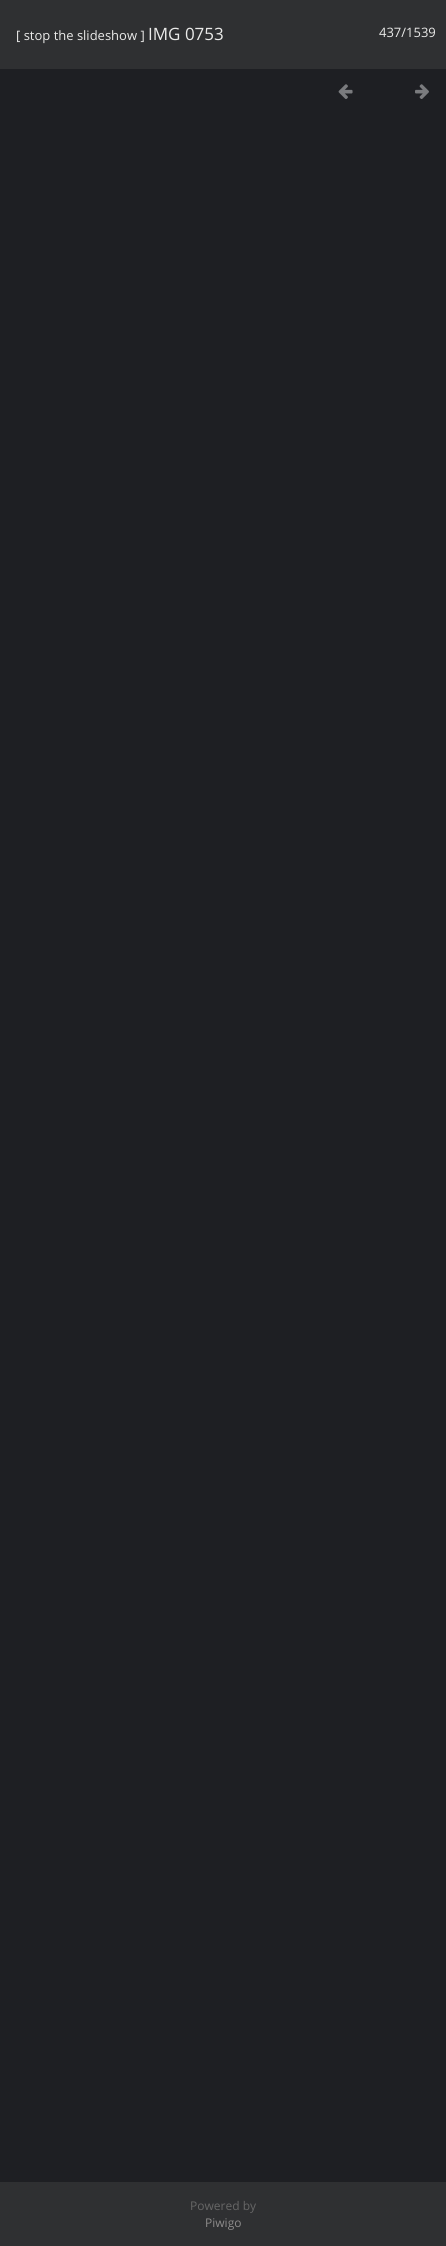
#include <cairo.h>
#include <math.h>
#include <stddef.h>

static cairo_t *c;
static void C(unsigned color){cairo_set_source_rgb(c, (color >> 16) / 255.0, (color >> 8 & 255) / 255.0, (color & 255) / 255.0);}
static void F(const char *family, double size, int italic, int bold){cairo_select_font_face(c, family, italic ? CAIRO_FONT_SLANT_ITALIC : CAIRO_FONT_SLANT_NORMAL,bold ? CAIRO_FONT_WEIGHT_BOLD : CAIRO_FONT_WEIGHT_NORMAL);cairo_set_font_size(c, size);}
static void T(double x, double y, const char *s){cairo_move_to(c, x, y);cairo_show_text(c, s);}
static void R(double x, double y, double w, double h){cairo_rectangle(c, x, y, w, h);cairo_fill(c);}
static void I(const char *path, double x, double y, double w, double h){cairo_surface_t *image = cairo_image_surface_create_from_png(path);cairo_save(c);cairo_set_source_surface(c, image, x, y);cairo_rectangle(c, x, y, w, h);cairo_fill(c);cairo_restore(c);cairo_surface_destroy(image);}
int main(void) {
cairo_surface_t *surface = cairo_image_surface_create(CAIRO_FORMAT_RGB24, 446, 2246);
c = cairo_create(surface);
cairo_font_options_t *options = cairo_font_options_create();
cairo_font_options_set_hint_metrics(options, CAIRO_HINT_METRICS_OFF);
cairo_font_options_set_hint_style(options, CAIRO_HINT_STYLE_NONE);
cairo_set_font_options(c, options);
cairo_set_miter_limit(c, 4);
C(0x1e1f23);
cairo_paint(c);
C(0x2f3032);
R(0,0,446,69);
F("Open Sans",13,0,0);
C(0xeaeae9);
T(16,40,"[ stop the slideshow ]");
F("Open Sans",17,0,0);
T(148,40,"IMG 0753");
F("Open Sans",13,0,0);
T(379,37,"437/1539");
I("1.png",338,84,15,15);
I("2.png",415,84,14,15);
C(0x2f3032);
R(0,2182,446,64);
F("Open Sans",12,0,0);
C(0x666666);
T(190,2210,"Powered by");
C(0x8d8b8b);
T(205,2227,"Piwigo");
cairo_surface_write_to_png(surface, "o.png");
cairo_font_options_destroy(options);
cairo_destroy(c);
cairo_surface_destroy(surface);
return 0;
}
